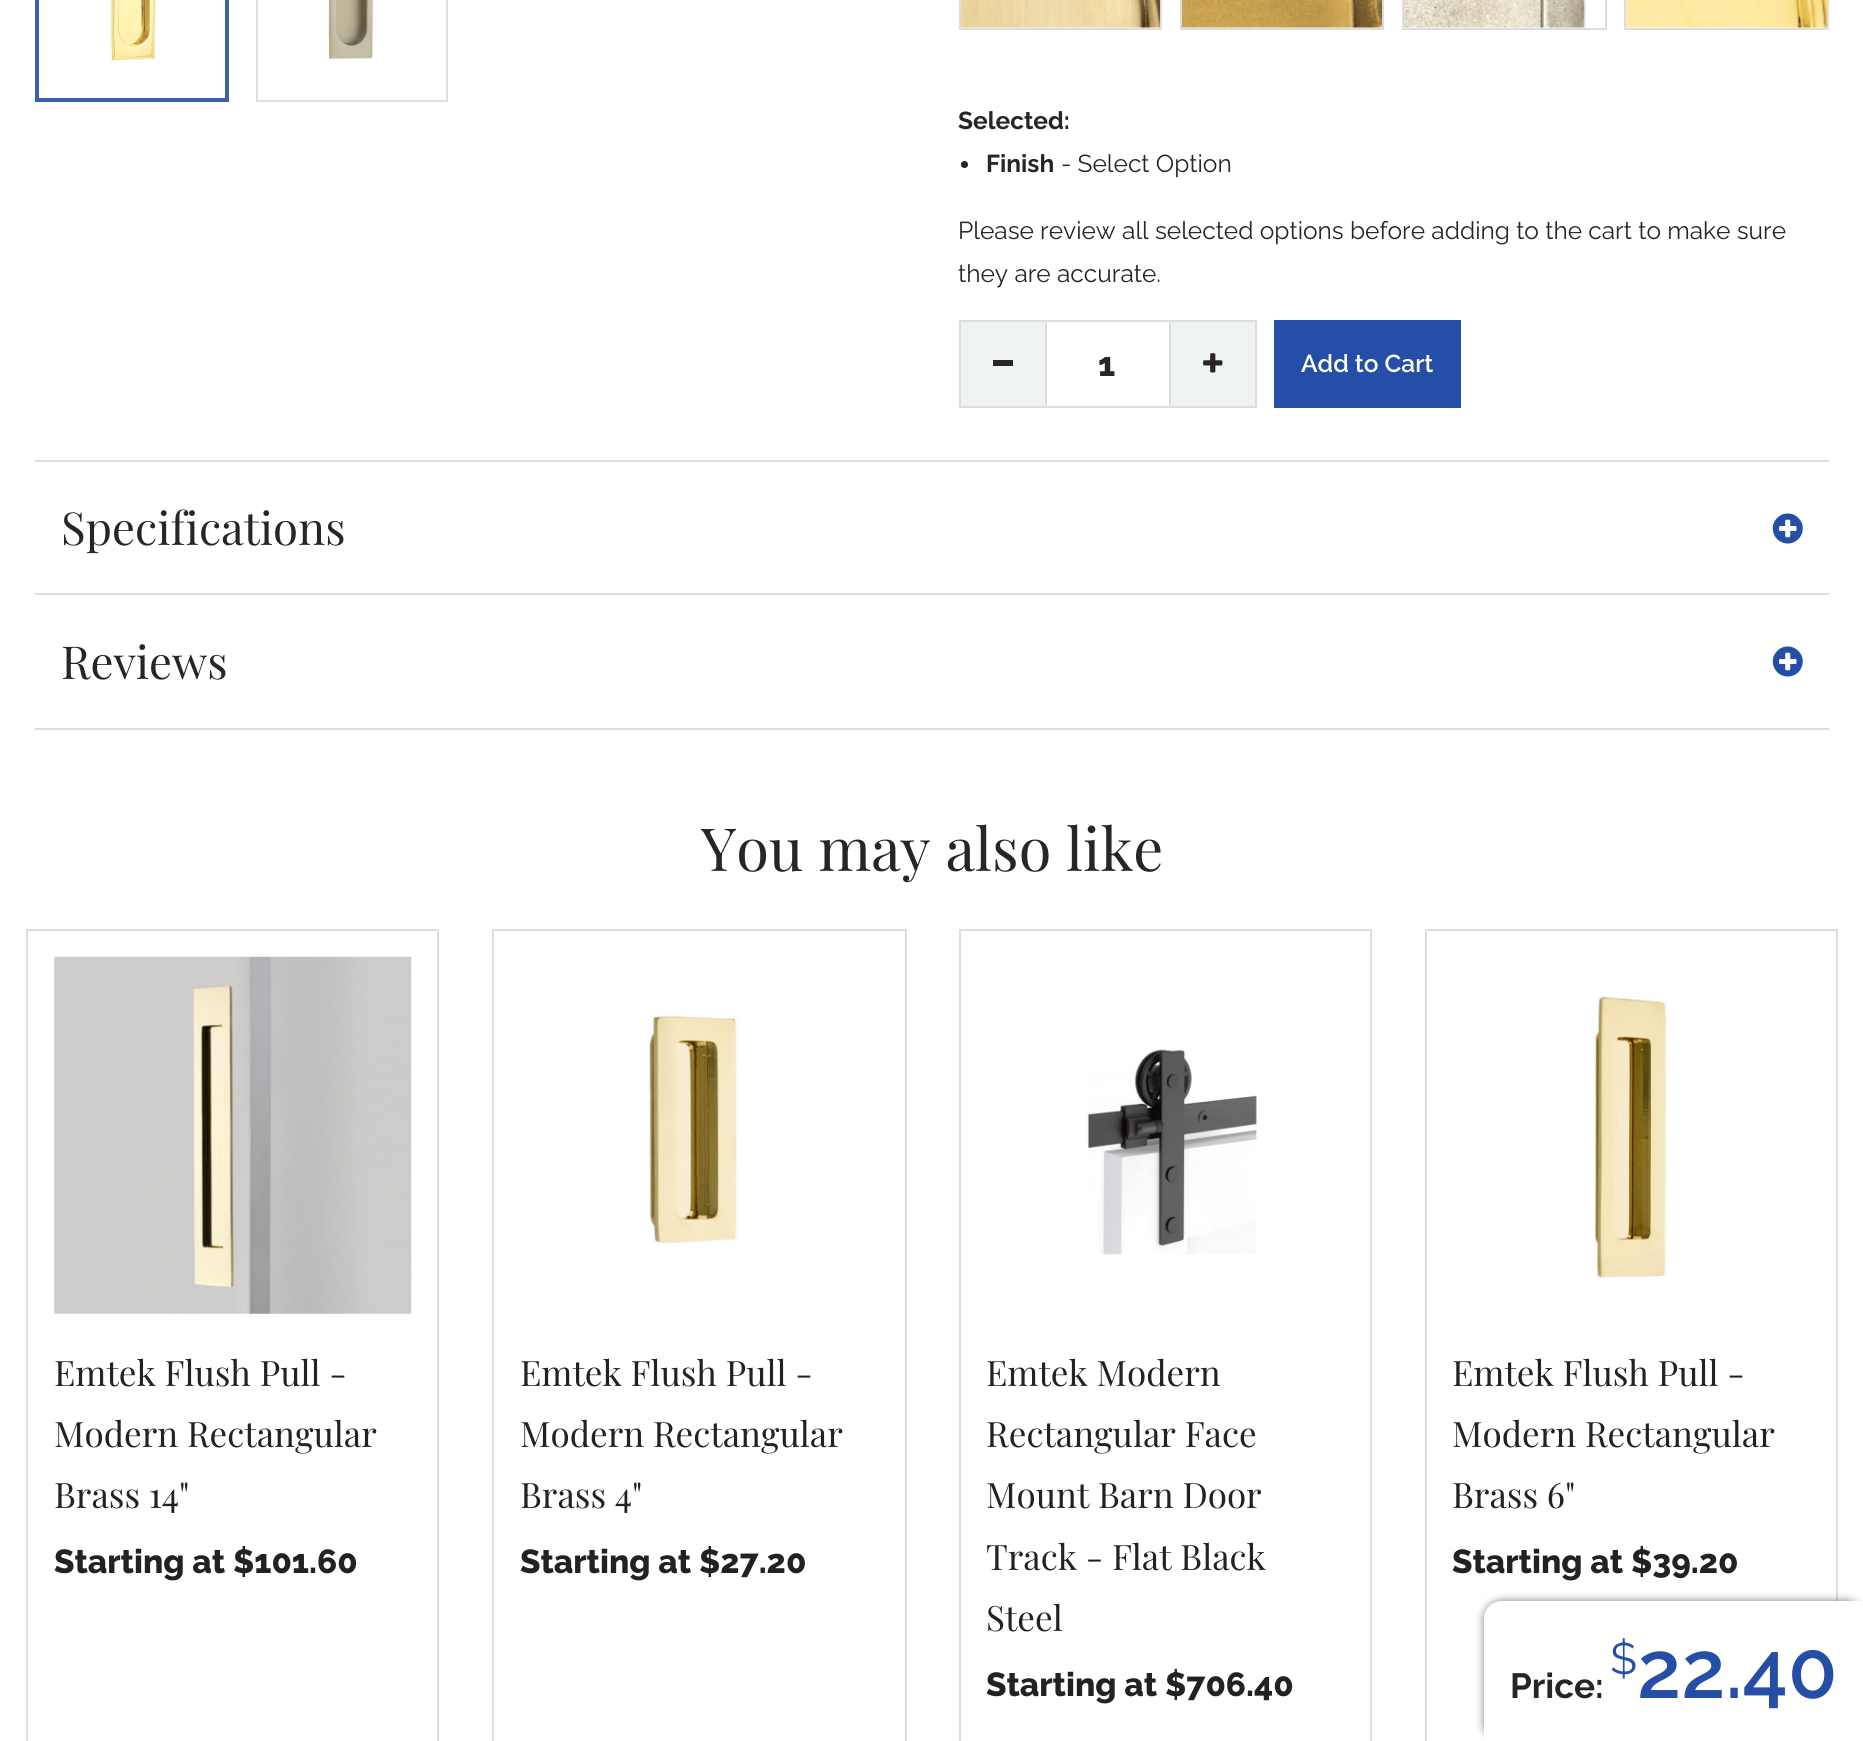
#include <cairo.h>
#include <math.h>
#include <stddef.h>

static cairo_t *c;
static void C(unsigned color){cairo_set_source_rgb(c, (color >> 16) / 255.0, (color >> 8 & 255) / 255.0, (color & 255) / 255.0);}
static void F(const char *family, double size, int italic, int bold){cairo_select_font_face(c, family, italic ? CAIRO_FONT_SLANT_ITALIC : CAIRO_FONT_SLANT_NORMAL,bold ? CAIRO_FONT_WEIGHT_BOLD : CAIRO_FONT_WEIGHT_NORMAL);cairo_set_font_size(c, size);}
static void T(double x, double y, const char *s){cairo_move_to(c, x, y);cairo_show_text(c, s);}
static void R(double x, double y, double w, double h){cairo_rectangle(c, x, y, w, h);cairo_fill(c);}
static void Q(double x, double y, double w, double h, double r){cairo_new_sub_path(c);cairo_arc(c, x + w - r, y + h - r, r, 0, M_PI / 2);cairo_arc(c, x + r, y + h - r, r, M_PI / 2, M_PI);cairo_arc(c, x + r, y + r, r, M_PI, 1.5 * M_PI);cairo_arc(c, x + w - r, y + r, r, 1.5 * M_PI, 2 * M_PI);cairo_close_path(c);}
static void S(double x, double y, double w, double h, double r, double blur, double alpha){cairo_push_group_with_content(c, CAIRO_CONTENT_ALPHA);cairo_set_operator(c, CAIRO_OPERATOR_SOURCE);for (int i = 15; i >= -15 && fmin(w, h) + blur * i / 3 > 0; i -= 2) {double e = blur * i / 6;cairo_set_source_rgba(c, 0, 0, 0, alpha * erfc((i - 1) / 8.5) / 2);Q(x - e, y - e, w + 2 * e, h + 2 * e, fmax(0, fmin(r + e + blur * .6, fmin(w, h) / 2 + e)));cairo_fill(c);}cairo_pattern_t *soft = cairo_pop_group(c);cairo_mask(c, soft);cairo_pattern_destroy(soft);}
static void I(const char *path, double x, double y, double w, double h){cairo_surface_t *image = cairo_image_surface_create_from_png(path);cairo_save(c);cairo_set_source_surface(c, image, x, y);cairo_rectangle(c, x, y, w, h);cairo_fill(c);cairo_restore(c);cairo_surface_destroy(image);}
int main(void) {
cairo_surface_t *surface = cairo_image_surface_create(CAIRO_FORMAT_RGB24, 1863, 1741);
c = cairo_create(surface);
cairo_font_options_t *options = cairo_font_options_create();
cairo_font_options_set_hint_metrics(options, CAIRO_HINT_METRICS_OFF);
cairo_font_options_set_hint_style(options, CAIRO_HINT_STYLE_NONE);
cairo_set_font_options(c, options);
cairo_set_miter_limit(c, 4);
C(0xffffff);
cairo_paint(c);
I("1.png",110,0,46,62);
cairo_rectangle(c,37,-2,190,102);
C(0x3b60af);
cairo_set_line_width(c,4);
cairo_stroke(c);
I("2.png",328,0,45,60);
cairo_rectangle(c,257,-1,190,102);
C(0xe0e0e0);
cairo_set_line_width(c,2);
cairo_stroke(c);
C(0xdddddd);
R(35,728,1794,2);
R(35,460,1794,2);
F("Playfair Display",45.5,0,0);
C(0x292526);
T(61,545,"Specifications");
I("3.png",1772,513,31,31);
C(0xdddddd);
R(35,593,1794,2);
C(0x292526);
T(61,679,"Reviews");
I("3.png",1772,646,31,31);
I("4.png",961,0,199,28);
cairo_rectangle(c,960,-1,201,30);
C(0xdddddd);
cairo_stroke(c);
I("5.png",1182,0,200,28);
cairo_rectangle(c,1181,-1,202,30);
cairo_stroke(c);
I("6.png",1404,0,182,28);
cairo_rectangle(c,1403,-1,203,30);
cairo_stroke(c);
I("7.png",1626,0,201,28);
cairo_rectangle(c,1625,-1,203,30);
cairo_stroke(c);
F("Raleway",24.5,0,1);
C(0x292526);
T(958,129,"Selected:");
cairo_new_path(c);
cairo_arc(c,964.5,164.5,3.5,0,2 * M_PI);
cairo_fill(c);
T(986,172,"Finish");
F("Raleway",24.5,0,0);
T(1061,172,"- Select Option");
T(958,239,"Please review all selected options before adding to the cart to make sure");
T(958,282,"they are accurate.");
C(0xf0f3f4);
cairo_rectangle(c,960,321,86,86);
cairo_fill_preserve(c);
C(0xdddddd);
cairo_stroke(c);
C(0x292526);
R(993,360,20,6);
C(0xdddddd);
R(1047,320,122,2);
R(1047,406,122,2);
F("Raleway ExtraBold",33.25,0,0);
C(0x292526);
T(1098,376,"1");
C(0xf0f3f4);
cairo_rectangle(c,1170,321,86,86);
cairo_fill_preserve(c);
C(0xdddddd);
cairo_stroke(c);
I("8.png",1203,353,20,20);
C(0x254ea6);
R(1274,320,187,88);
F("Raleway SemiBold",24.5,0,0);
C(0xffffff);
T(1301,372,"Add to Cart");
cairo_rectangle(c,1426,930,411,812);
C(0xdddddd);
cairo_stroke(c);
C(0x000000);
S(1484,1601,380,140,18,4.5,.5);
C(0xffffff);
cairo_new_path(c);
cairo_move_to(c,1502,1601);
cairo_line_to(c,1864,1601);
cairo_line_to(c,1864,1741);
cairo_line_to(c,1484,1741);
cairo_line_to(c,1484,1619);
cairo_curve_to(c,1484,1609,1492,1601,1502,1601);
cairo_close_path(c);
cairo_fill(c);
F("Raleway",35,0,1);
C(0x292526);
T(1510,1698,"Price:");
F("Raleway",44,0,0);
C(0x254ea6);
T(1610,1674,"$");
F("Raleway SemiBold",80.5,0,0);
T(1637,1698,"22.40");
F("Playfair Display",59.5,0,0);
C(0x292526);
T(701,871,"You may also like");
cairo_rectangle(c,27,930,411,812);
C(0xdddddd);
cairo_stroke(c);
I("9.png",54,956,358,358);
F("Playfair Display",35,0,0);
C(0x222222);
T(54,1386,"Emtek Flush Pull -");
T(54,1447,"Modern Rectangular");
T(54,1508,"Brass 14\"");
F("Raleway ExtraBold",33.25,0,0);
T(54,1573,"Starting at $101.60");
cairo_rectangle(c,493,930,413,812);
C(0xdddddd);
cairo_stroke(c);
I("10.png",648,1012,91,234);
F("Playfair Display",35,0,0);
C(0x222222);
T(520,1386,"Emtek Flush Pull -");
T(520,1447,"Modern Rectangular");
T(520,1508,"Brass 4\"");
F("Raleway ExtraBold",33.25,0,0);
T(520,1573,"Starting at $27.20");
cairo_rectangle(c,960,930,411,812);
C(0xdddddd);
cairo_stroke(c);
I("11.png",1087,1049,170,206);
F("Playfair Display",35,0,0);
C(0x222222);
T(986,1386,"Emtek Modern");
T(986,1447,"Rectangular Face");
T(986,1508,"Mount Barn Door");
T(986,1570,"Track - Flat Black");
T(986,1631,"Steel");
F("Raleway ExtraBold",33.25,0,0);
T(986,1696,"Starting at $706.40");
I("12.png",1594,995,76,284);
F("Playfair Display",35,0,0);
T(1452,1386,"Emtek Flush Pull -");
T(1452,1447,"Modern Rectangular");
T(1452,1508,"Brass 6\"");
F("Raleway ExtraBold",33.25,0,0);
T(1452,1573,"Starting at $39.20");
cairo_surface_write_to_png(surface, "o.png");
cairo_font_options_destroy(options);
cairo_destroy(c);
cairo_surface_destroy(surface);
return 0;
}
